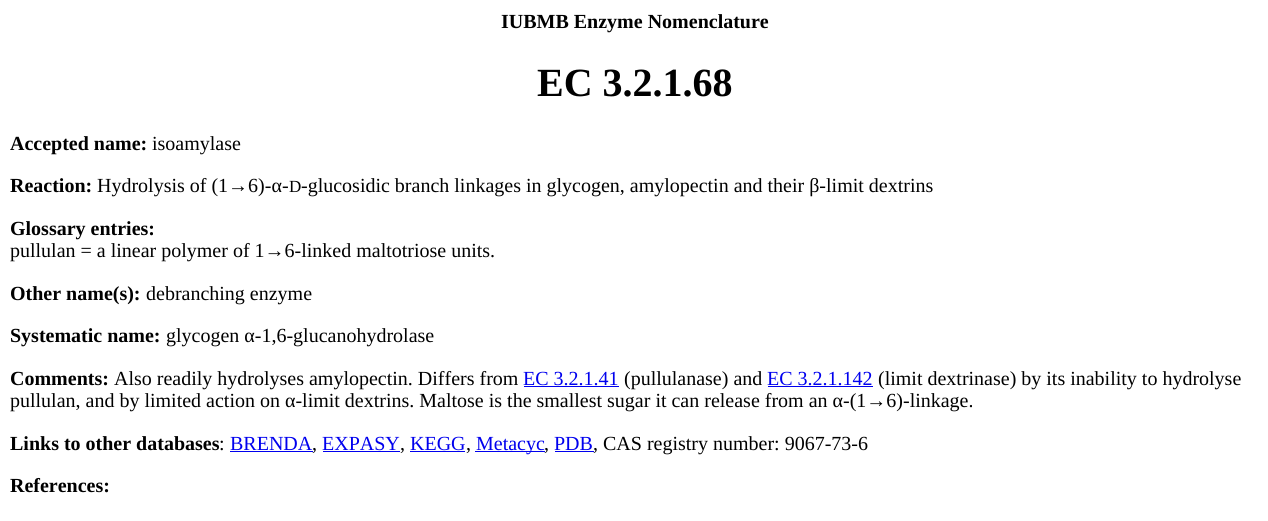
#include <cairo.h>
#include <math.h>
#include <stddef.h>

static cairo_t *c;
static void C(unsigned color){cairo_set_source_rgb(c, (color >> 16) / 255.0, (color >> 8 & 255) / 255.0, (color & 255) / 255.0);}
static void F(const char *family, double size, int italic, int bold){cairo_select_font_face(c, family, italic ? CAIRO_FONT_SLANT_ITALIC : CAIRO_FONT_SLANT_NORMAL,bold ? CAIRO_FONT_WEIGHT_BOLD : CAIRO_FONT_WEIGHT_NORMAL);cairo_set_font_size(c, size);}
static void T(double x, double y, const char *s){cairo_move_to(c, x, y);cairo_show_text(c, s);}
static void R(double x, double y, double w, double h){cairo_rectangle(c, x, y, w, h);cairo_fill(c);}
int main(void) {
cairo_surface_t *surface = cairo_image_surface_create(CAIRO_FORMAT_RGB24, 1268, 521);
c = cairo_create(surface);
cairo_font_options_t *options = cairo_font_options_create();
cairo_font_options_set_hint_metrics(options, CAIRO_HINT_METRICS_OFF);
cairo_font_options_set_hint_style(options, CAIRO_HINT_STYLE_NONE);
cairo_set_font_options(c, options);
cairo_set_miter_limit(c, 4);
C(0xffffff);
cairo_paint(c);
F("Liberation Serif",20,0,1);
C(0x000000);
T(501,28,"IUBMB Enzyme Nomenclature");
F("Liberation Serif",40,0,1);
T(537,96,"EC 3.2.1.68");
F("Liberation Serif",20,0,1);
T(10,150,"Accepted name:");
F("Liberation Serif",20,0,0);
T(152,150,"isoamylase");
F("Liberation Serif",20,0,1);
T(10,192,"Reaction:");
F("Liberation Serif",20,0,0);
T(97,192,"Hydrolysis of (1→6)-α-");
F("Liberation Serif",17,0,0);
T(289,192,"D");
F("Liberation Serif",20,0,0);
T(301,192,"-glucosidic branch linkages in glycogen, amylopectin and their β-limit dextrins");
F("Liberation Serif",20,0,1);
T(10,235,"Glossary entries:");
F("Liberation Serif",20,0,0);
T(10,257,"pullulan = a linear polymer of 1→6-linked maltotriose units.");
F("Liberation Serif",20,0,1);
T(10,300,"Other name(s):");
F("Liberation Serif",20,0,0);
T(146,300,"debranching enzyme");
F("Liberation Serif",20,0,1);
T(10,342,"Systematic name:");
F("Liberation Serif",20,0,0);
T(166,342,"glycogen α-1,6-glucanohydrolase");
F("Liberation Serif",20,0,1);
T(10,385,"Comments:");
F("Liberation Serif",20,0,0);
T(114,385,"Also readily hydrolyses amylopectin. Differs from");
C(0x0000ee);
T(523,385,"EC 3.2.1.41");
R(524,386,95,1);
C(0x000000);
T(624,385,"(pullulanase) and");
C(0x0000ee);
T(767,385,"EC 3.2.1.142");
R(768,386,105,1);
C(0x000000);
T(878,385,"(limit dextrinase) by its inability to hydrolyse");
T(10,407,"pullulan, and by limited action on α-limit dextrins. Maltose is the smallest sugar it can release from an α-(1→6)-linkage.");
F("Liberation Serif",20,0,1);
T(10,450,"Links to other databases");
F("Liberation Serif",20,0,0);
T(219,450,":");
C(0x0000ee);
T(230,450,"BRENDA");
R(230,451,83,1);
C(0x000000);
T(312,450,",");
C(0x0000ee);
T(322,450,"EXPASY");
R(323,451,77,1);
C(0x000000);
T(400,450,",");
C(0x0000ee);
T(410,450,"KEGG");
R(410,451,55,1);
C(0x000000);
T(466,450,",");
C(0x0000ee);
R(475,451,70,1);
T(476,450,"Metacyc");
C(0x000000);
T(544,450,",");
C(0x0000ee);
T(554,450,"PDB");
R(555,451,39,1);
C(0x000000);
T(593,450,", CAS registry number: 9067-73-6");
F("Liberation Serif",20,0,1);
T(10,492,"References:");
cairo_surface_write_to_png(surface, "o.png");
cairo_font_options_destroy(options);
cairo_destroy(c);
cairo_surface_destroy(surface);
return 0;
}
